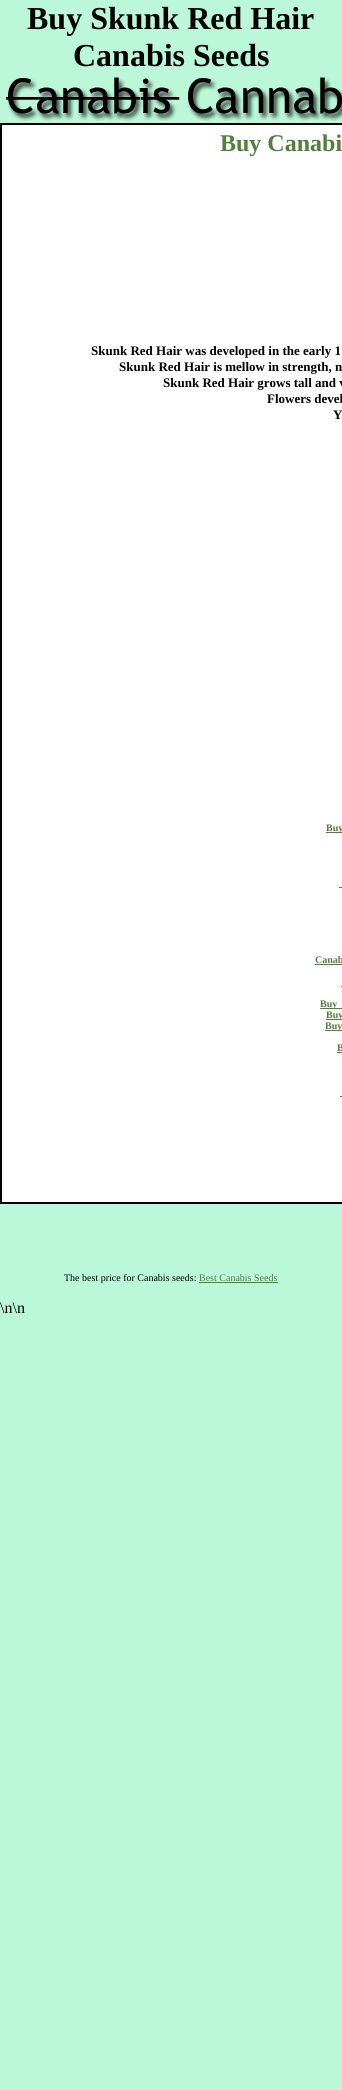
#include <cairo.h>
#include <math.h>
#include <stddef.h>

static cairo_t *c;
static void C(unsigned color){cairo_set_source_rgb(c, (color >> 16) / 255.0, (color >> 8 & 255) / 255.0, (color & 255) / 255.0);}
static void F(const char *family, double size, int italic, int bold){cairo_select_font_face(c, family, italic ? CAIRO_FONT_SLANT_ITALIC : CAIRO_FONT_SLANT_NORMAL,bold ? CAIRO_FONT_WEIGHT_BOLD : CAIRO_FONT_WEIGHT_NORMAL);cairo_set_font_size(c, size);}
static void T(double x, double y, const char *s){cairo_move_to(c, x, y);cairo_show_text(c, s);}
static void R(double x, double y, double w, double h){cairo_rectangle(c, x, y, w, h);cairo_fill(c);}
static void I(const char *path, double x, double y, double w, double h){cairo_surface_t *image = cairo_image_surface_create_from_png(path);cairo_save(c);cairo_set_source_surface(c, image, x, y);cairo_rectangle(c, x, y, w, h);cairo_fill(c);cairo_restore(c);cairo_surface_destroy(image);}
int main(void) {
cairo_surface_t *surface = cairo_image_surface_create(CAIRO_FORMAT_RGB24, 342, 2090);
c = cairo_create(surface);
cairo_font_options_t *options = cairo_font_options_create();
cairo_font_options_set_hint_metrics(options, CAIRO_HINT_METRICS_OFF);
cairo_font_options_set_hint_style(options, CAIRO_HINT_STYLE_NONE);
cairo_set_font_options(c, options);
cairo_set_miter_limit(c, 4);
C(0xbbf8d9);
cairo_paint(c);
F("Liberation Serif",32,0,1);
C(0x000000);
T(27,29,"Buy Skunk Red Hair");
T(73,66,"Canabis Seeds");
I("1.png",6,77,336,44);
R(0,123,342,2);
R(0,1202,342,2);
R(0,123,2,1081);
C(0xffffff);
R(2,125,340,1077);
F("Liberation Serif",24,0,1);
C(0x51803b);
T(220,151,"Buy Canabi");
F("Liberation Serif",13,0,1);
C(0x000000);
T(91,355,"Skunk Red Hair was developed in the early 1");
T(119,371,"Skunk Red Hair is mellow in strength, n");
T(163,387,"Skunk Red Hair grows tall and v");
T(267,403,"Flowers devel");
T(333,419,"Y");
C(0x51803b);
R(326,832,16,1);
F("Liberation Serif",10,0,1);
T(326,831,"Buy");
R(339,887,3,1);
T(315,963,"Canab");
R(315,964,27,1);
R(320,1008,22,1);
T(320,1007,"Buy");
R(341,986,1,1);
R(326,1019,16,1);
T(326,1018,"Buy");
R(325,1030,17,1);
T(325,1029,"Buy");
T(337,1051,"B");
R(337,1052,5,1);
R(340,1096,2,1);
F("Liberation Serif",10,0,0);
C(0x000000);
T(64,1281,"The best price for Canabis seeds:");
C(0x51803b);
T(199,1281,"Best Canabis Seeds");
R(199,1282,79,1);
F("Liberation Serif",16,0,0);
C(0x000000);
T(0,1313,"\\n\\n");
cairo_surface_write_to_png(surface, "o.png");
cairo_font_options_destroy(options);
cairo_destroy(c);
cairo_surface_destroy(surface);
return 0;
}
